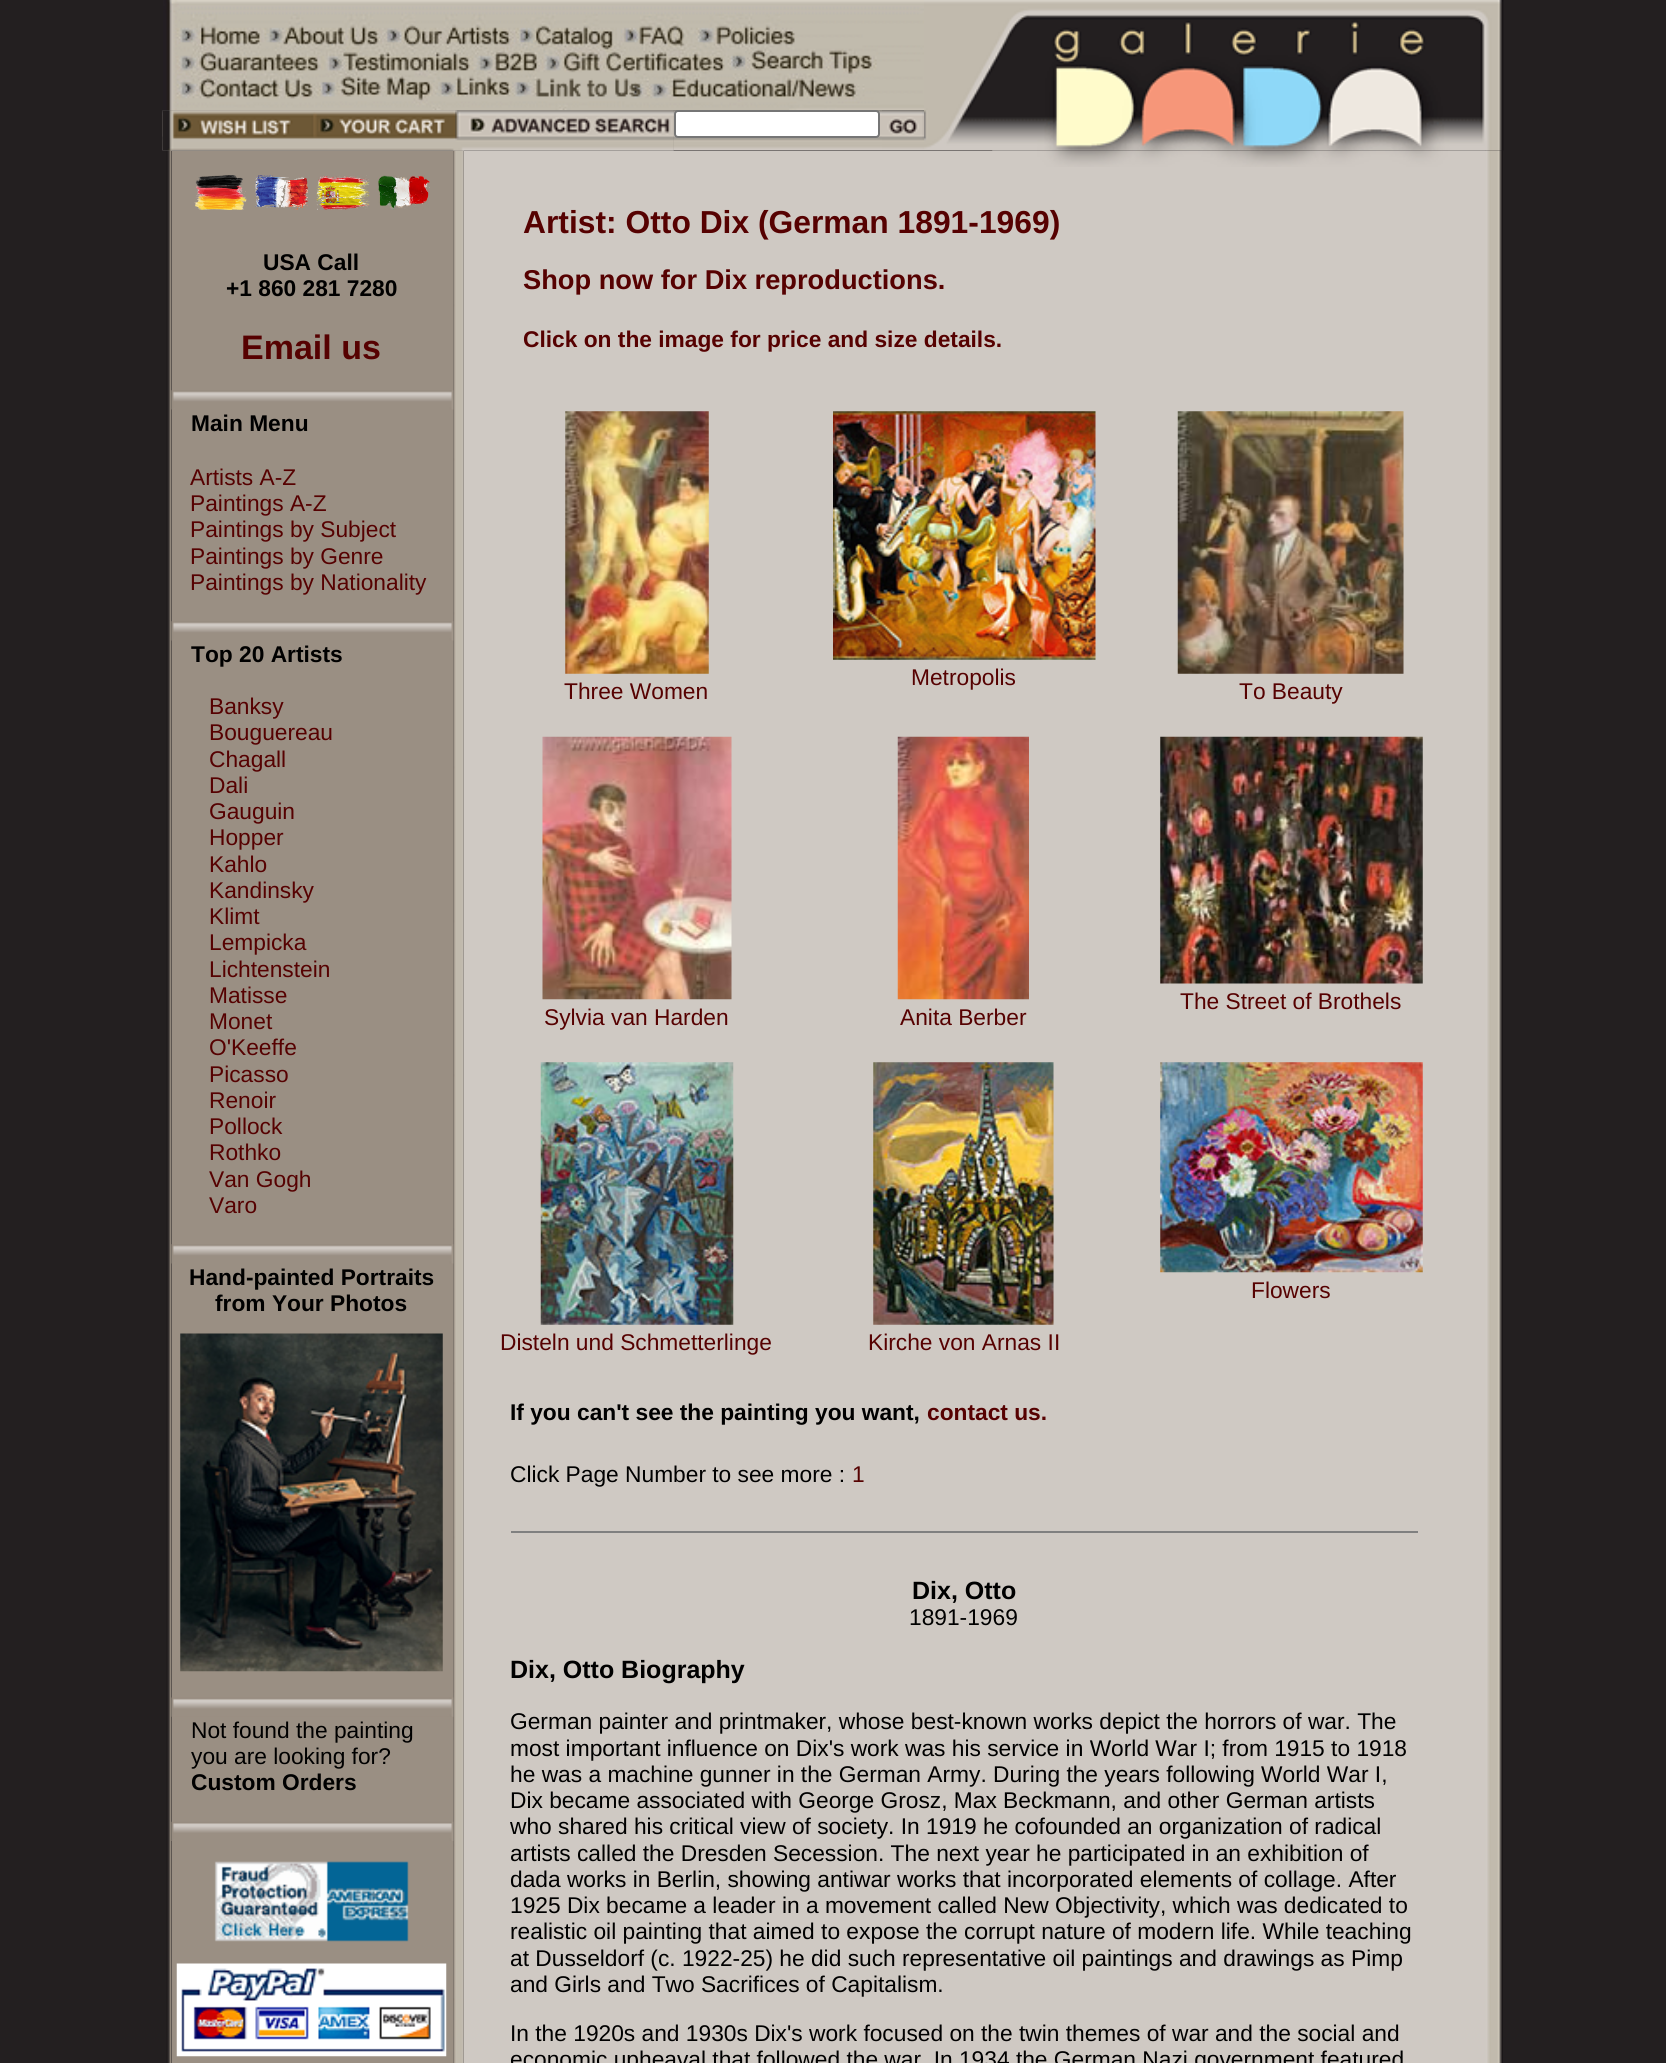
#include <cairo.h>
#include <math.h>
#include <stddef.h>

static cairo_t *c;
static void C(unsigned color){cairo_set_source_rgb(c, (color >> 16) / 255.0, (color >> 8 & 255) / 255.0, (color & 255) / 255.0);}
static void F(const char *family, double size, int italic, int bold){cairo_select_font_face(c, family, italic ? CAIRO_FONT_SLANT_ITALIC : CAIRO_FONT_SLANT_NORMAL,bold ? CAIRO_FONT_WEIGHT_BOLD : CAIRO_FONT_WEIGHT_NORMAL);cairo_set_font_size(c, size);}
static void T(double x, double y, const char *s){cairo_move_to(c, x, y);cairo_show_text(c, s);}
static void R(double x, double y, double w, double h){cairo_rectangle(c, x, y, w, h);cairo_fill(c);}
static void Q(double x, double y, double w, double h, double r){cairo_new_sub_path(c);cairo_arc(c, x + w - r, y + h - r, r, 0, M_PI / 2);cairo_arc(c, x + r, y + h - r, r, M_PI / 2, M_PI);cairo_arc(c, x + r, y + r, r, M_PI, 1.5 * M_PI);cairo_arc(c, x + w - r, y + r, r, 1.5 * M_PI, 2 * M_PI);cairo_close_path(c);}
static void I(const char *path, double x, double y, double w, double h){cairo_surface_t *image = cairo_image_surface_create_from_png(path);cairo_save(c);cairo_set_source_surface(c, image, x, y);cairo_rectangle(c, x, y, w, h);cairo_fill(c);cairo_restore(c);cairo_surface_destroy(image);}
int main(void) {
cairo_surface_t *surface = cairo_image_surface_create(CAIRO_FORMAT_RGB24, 1666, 2063);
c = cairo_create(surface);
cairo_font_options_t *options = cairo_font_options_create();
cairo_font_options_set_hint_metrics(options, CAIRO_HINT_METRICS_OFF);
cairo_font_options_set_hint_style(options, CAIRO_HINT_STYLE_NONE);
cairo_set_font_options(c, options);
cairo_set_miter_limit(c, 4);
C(0x231f20);
cairo_paint(c);
I("3.png",162,110,512,41);
I("6.png",673,110,209,41);
I("1.png",163,0,761,111);
C(0xcfc9c3);
R(464,151,1022,1912);
I("30.png",1485,150,18,1913);
I("2.png",924,0,580,151);
I("8.png",163,150,9,1913);
I("19.png",453,150,11,1913);
I("4.png",162,110,293,41);
I("5.png",455,110,219,41);
C(0xffffff);
Q(675,111,204,26,3);
cairo_fill_preserve(c);
C(0x767676);
cairo_stroke(c);
I("7.png",882,110,42,41);
C(0x9a8f83);
R(172,151,281,1912);
I("9.png",194,175,53,35);
I("10.png",255,175,53,35);
I("11.png",316,175,54,35);
I("12.png",378,175,52,35);
F("Liberation Sans",22.75,0,1);
C(0x000000);
T(263,270,"USA Call");
T(226,296,"+1 860 281 7280");
F("Liberation Sans",34,0,1);
C(0x560101);
T(241,359,"Email us");
I("13.png",171,390,283,20);
F("Liberation Sans",22.75,0,1);
C(0x000000);
T(191,431,"Main Menu");
F("Liberation Sans",22.75,0,0);
C(0x560101);
T(190,485,"Artists A-Z");
T(190,511,"Paintings A-Z");
T(190,537,"Paintings by Subject");
T(190,564,"Paintings by Genre");
T(190,590,"Paintings by Nationality");
I("13.png",171,621,283,20);
F("Liberation Sans",22.75,0,1);
C(0x000000);
T(191,662,"Top 20 Artists");
F("Liberation Sans",22.75,0,0);
C(0x560101);
T(209,714,"Banksy");
T(209,740,"Bouguereau");
T(209,767,"Chagall");
T(209,793,"Dali");
T(209,819,"Gauguin");
T(209,845,"Hopper");
T(209,872,"Kahlo");
T(209,898,"Kandinsky");
T(209,924,"Klimt");
T(209,950,"Lempicka");
T(209,977,"Lichtenstein");
T(209,1003,"Matisse");
T(209,1029,"Monet");
T(209,1055,"O'Keeffe");
T(209,1082,"Picasso");
T(209,1108,"Renoir");
T(209,1134,"Pollock");
T(209,1160,"Rothko");
T(209,1187,"Van Gogh");
T(209,1213,"Varo");
I("13.png",171,1244,283,20);
F("Liberation Sans",22.75,0,1);
C(0x000000);
T(189,1285,"Hand-painted Portraits");
T(215,1311,"from Your Photos");
I("14.png",180,1333,263,339);
I("15.png",171,1697,283,20);
F("Liberation Sans",22.75,0,0);
T(191,1738,"Not found the painting");
T(191,1764,"you are looking for?");
F("Liberation Sans",22.75,0,1);
T(191,1790,"Custom Orders");
I("16.png",171,1821,283,20);
I("17.png",214,1861,195,81);
I("18.png",176,1963,271,94);
I("20.png",992,150,494,17);
F("Liberation Sans",31.8,0,1);
C(0x560101);
T(523,233,"Artist: Otto Dix (German 1891-1969)");
F("Liberation Sans",27.25,0,1);
T(523,289,"Shop now for Dix reproductions.");
F("Liberation Sans",22.75,0,1);
T(523,347,"Click on the image for price and size details.");
I("21.png",565,411,144,263);
F("Liberation Sans",22.75,0,0);
T(564,699,"Three Women");
I("22.png",833,411,263,249);
T(911,685,"Metropolis");
I("23.png",1177,411,227,263);
T(1239,699,"To Beauty");
I("24.png",1160,736,263,248);
T(1180,1009,"The Street of Brothels");
I("25.png",542,736,190,264);
T(544,1025,"Sylvia van Harden");
I("26.png",897,736,132,264);
T(900,1025,"Anita Berber");
I("27.png",1160,1062,263,211);
T(1251,1298,"Flowers");
I("28.png",540,1062,194,263);
T(500,1350,"Disteln und Schmetterlinge");
I("29.png",873,1062,181,263);
T(868,1350,"Kirche von Arnas II");
F("Liberation Sans",22.75,0,1);
C(0x000000);
T(510,1420,"If you can't see the painting you want,");
C(0x560101);
T(927,1420,"contact us.");
F("Liberation Sans",22.75,0,0);
C(0x000000);
T(510,1482,"Click Page Number to see more :");
C(0x560101);
T(852,1482,"1");
C(0x808080);
R(511,1531,907,2);
F("Liberation Sans",25,0,1);
C(0x000000);
T(912,1599,"Dix, Otto");
F("Liberation Sans",22.75,0,0);
T(909,1625,"1891-1969");
F("Liberation Sans",25,0,1);
T(510,1678,"Dix, Otto Biography");
F("Liberation Sans",22.75,0,0);
T(510,1729,"German painter and printmaker, whose best-known works depict the horrors of war. The");
T(510,1756,"most important influence on Dix's work was his service in World War I; from 1915 to 1918");
T(510,1782,"he was a machine gunner in the German Army. During the years following World War I,");
T(510,1808,"Dix became associated with George Grosz, Max Beckmann, and other German artists");
T(510,1834,"who shared his critical view of society. In 1919 he cofounded an organization of radical");
T(510,1861,"artists called the Dresden Secession. The next year he participated in an exhibition of");
T(510,1887,"dada works in Berlin, showing antiwar works that incorporated elements of collage. After");
T(510,1913,"1925 Dix became a leader in a movement called New Objectivity, which was dedicated to");
T(510,1939,"realistic oil painting that aimed to expose the corrupt nature of modern life. While teaching");
T(510,1966,"at Dusseldorf (c. 1922-25) he did such representative oil paintings and drawings as Pimp");
T(510,1992,"and Girls and Two Sacrifices of Capitalism.");
T(510,2041,"In the 1920s and 1930s Dix's work focused on the twin themes of war and the social and");
T(510,2067,"economic upheaval that followed the war. In 1934 the German Nazi government featured");
cairo_surface_write_to_png(surface, "o.png");
cairo_font_options_destroy(options);
cairo_destroy(c);
cairo_surface_destroy(surface);
return 0;
}
